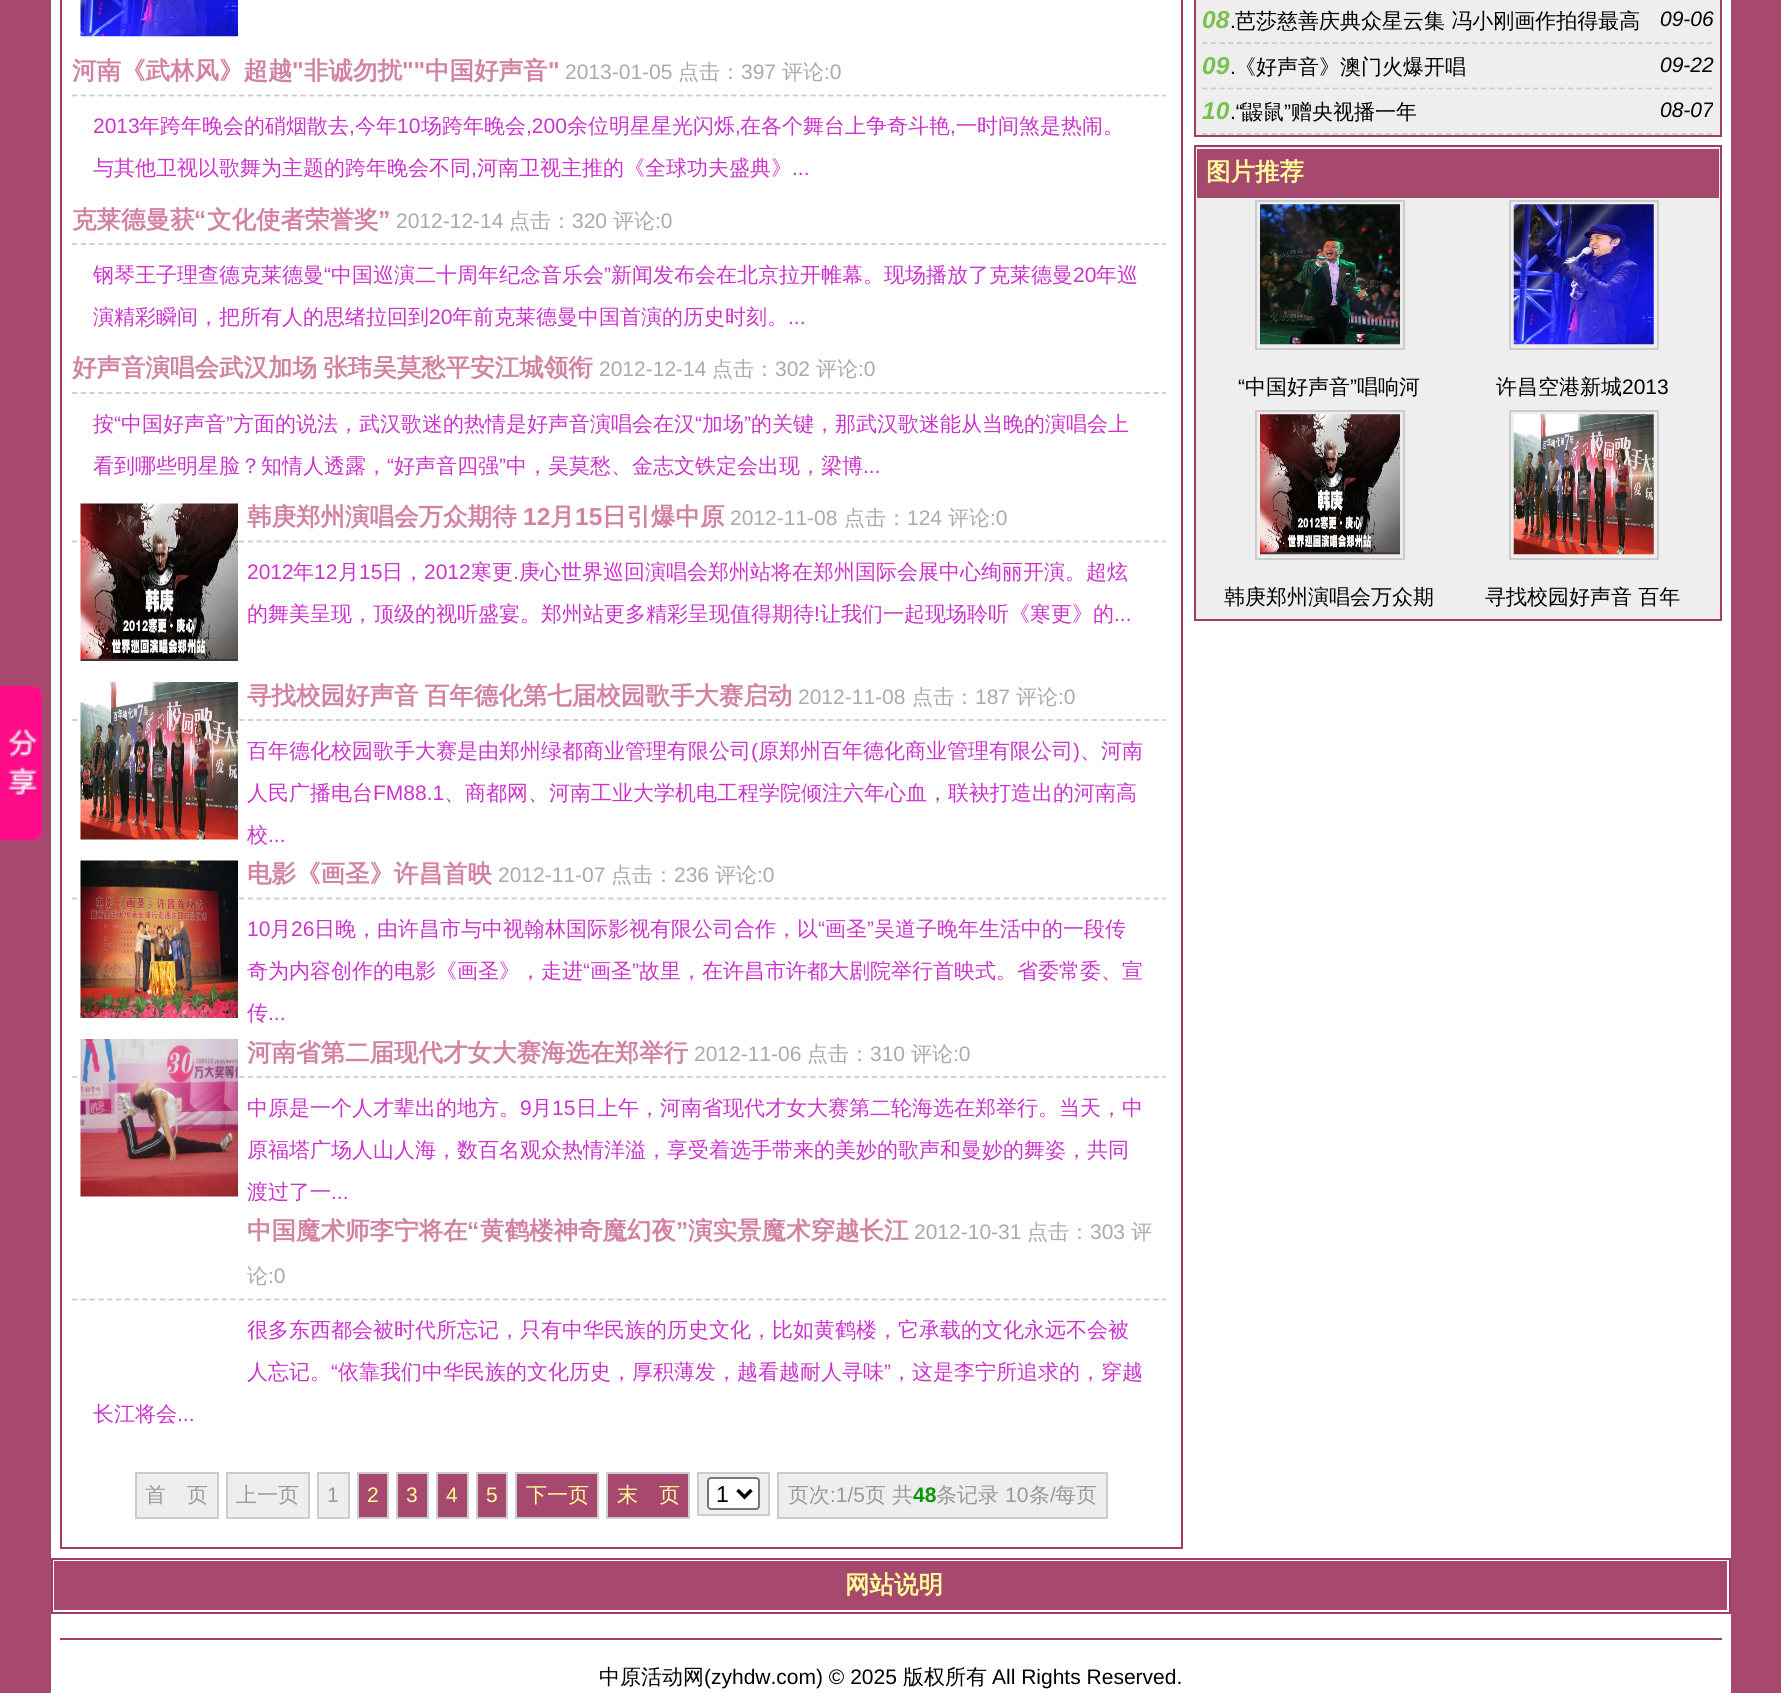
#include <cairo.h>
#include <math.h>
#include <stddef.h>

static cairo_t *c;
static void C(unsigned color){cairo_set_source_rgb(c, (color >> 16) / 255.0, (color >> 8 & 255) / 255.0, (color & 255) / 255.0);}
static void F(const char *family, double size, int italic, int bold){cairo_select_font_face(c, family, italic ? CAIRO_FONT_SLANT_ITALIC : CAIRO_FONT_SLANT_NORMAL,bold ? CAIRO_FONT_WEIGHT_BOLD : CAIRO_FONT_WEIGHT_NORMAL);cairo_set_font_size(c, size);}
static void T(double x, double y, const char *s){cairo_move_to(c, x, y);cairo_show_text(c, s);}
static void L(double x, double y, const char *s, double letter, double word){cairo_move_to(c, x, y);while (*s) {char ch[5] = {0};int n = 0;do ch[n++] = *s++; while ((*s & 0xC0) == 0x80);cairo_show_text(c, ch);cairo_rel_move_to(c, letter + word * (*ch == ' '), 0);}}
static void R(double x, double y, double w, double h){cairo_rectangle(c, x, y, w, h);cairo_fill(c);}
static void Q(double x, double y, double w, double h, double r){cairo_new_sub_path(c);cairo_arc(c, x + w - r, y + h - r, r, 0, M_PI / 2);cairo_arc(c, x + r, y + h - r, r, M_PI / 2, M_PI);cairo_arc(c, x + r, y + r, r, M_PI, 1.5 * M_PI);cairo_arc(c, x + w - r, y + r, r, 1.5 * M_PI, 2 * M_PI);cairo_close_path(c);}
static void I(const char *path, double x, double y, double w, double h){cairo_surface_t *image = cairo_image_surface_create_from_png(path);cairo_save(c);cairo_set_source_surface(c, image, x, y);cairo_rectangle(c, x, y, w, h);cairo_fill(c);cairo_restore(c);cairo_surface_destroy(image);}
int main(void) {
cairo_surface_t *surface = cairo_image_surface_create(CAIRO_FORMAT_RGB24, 1781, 1693);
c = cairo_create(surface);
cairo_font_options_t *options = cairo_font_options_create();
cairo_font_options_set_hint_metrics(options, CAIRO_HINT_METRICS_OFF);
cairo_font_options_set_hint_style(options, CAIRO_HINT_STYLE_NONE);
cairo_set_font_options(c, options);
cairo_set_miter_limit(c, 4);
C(0xa7486e);
cairo_paint(c);
I("1.png",0,686,42,154);
C(0xffffff);
R(51,0,1680,1693);
cairo_rectangle(c,61,-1,1121,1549);
C(0xa23b65);
cairo_stroke(c);
I("2.png",80,0,158,37);
cairo_new_path(c);
cairo_move_to(c,72,95.5);
cairo_line_to(c,1165.5,95.5);
C(0xcccccc);
cairo_set_line_width(c,1.8);
cairo_set_dash(c,(double[]){5.25,3.54},2,0);
cairo_stroke(c);
F("WenQuanYi Zen Hei",24.5,0,1);
C(0xd282a2);
T(72,79,"河南《武林风》超越");
F("Liberation Sans",24.5,0,1);
T(292,79,"\"");
F("WenQuanYi Zen Hei",24.5,0,1);
T(304,79,"非诚勿扰");
F("Liberation Sans",24.5,0,1);
T(402,79,"\"\"");
F("WenQuanYi Zen Hei",24.5,0,1);
T(425,79,"中国好声音");
F("Liberation Sans",24.5,0,1);
T(548,79,"\"");
F("Liberation Sans",21,0,0);
C(0xaaaaaa);
T(565,79,"2013-01-05");
F("WenQuanYi Zen Hei Medium",21,0,0);
T(678,79,"点击：");
F("Liberation Sans",21,0,0);
T(741,79,"397");
F("WenQuanYi Zen Hei Medium",21,0,0);
T(782,79,"评论");
F("Liberation Sans",21,0,0);
T(824,79,":0");
C(0xcc33cc);
T(93,133,"2013");
F("WenQuanYi Zen Hei Medium",21,0,0);
T(139,133,"年跨年晚会的硝烟散去");
F("Liberation Sans",21,0,0);
T(349,133,",");
F("WenQuanYi Zen Hei Medium",21,0,0);
T(355,133,"今年");
F("Liberation Sans",21,0,0);
T(397,133,"10");
F("WenQuanYi Zen Hei Medium",21,0,0);
T(421,133,"场跨年晚会");
F("Liberation Sans",21,0,0);
T(526,133,",200");
F("WenQuanYi Zen Hei Medium",21,0,0);
T(567,133,"余位明星星光闪烁");
F("Liberation Sans",21,0,0);
T(735,133,",");
F("WenQuanYi Zen Hei Medium",21,0,0);
T(740,133,"在各个舞台上争奇斗艳");
F("Liberation Sans",21,0,0);
T(950,133,",");
F("WenQuanYi Zen Hei Medium",21,0,0);
T(956,133,"一时间煞是热闹。");
T(93,175,"与其他卫视以歌舞为主题的跨年晚会不同");
F("Liberation Sans",21,0,0);
T(471,175,",");
F("WenQuanYi Zen Hei Medium",21,0,0);
T(477,175,"河南卫视主推的《全球功夫盛典》");
F("Liberation Sans",21,0,0);
T(792,175,"...");
cairo_new_path(c);
cairo_move_to(c,72,244);
cairo_line_to(c,1165.5,244);
C(0xcccccc);
cairo_stroke(c);
F("WenQuanYi Zen Hei",24.5,0,1);
C(0xd282a2);
T(72,228,"克莱德曼获");
F("Liberation Sans",24.5,0,1);
T(194,228,"“");
F("WenQuanYi Zen Hei",24.5,0,1);
T(207,228,"文化使者荣誉奖");
F("Liberation Sans",24.5,0,1);
T(378,228,"”");
F("Liberation Sans",21,0,0);
C(0xaaaaaa);
T(396,228,"2012-12-14");
F("WenQuanYi Zen Hei Medium",21,0,0);
T(509,228,"点击：");
F("Liberation Sans",21,0,0);
T(572,228,"320");
F("WenQuanYi Zen Hei Medium",21,0,0);
T(613,228,"评论");
F("Liberation Sans",21,0,0);
T(655,228,":0");
F("WenQuanYi Zen Hei Medium",21,0,0);
C(0xcc33cc);
T(93,282,"钢琴王子理查德克莱德曼");
F("Liberation Sans",21,0,0);
T(324,282,"“");
F("WenQuanYi Zen Hei Medium",21,0,0);
T(331,282,"中国巡演二十周年纪念音乐会");
F("Liberation Sans",21,0,0);
T(604,282,"”");
F("WenQuanYi Zen Hei Medium",21,0,0);
T(611,282,"新闻发布会在北京拉开帷幕。现场播放了克莱德曼");
F("Liberation Sans",21,0,0);
T(1073,282,"20");
F("WenQuanYi Zen Hei Medium",21,0,0);
T(1096,282,"年巡");
T(93,324,"演精彩瞬间，把所有人的思绪拉回到");
F("Liberation Sans",21,0,0);
T(429,324,"20");
F("WenQuanYi Zen Hei Medium",21,0,0);
T(452,324,"年前克莱德曼中国首演的历史时刻。");
F("Liberation Sans",21,0,0);
T(788,324,"...");
cairo_new_path(c);
cairo_move_to(c,72,393);
cairo_line_to(c,1165.5,393);
C(0xcccccc);
cairo_stroke(c);
F("WenQuanYi Zen Hei",24.5,0,1);
C(0xd282a2);
L(72,376,"好声音演唱会武汉加场 张玮吴莫愁平安江城领衔",0,-1);
F("Liberation Sans",21,0,0);
C(0xaaaaaa);
T(599,376,"2012-12-14");
F("WenQuanYi Zen Hei Medium",21,0,0);
T(712,376,"点击：");
F("Liberation Sans",21,0,0);
T(775,376,"302");
F("WenQuanYi Zen Hei Medium",21,0,0);
T(816,376,"评论");
F("Liberation Sans",21,0,0);
T(858,376,":0");
F("WenQuanYi Zen Hei Medium",21,0,0);
C(0xcc33cc);
T(93,431,"按");
F("Liberation Sans",21,0,0);
T(114,431,"“");
F("WenQuanYi Zen Hei Medium",21,0,0);
T(121,431,"中国好声音");
F("Liberation Sans",21,0,0);
T(226,431,"”");
F("WenQuanYi Zen Hei Medium",21,0,0);
T(233,431,"方面的说法，武汉歌迷的热情是好声音演唱会在汉");
F("Liberation Sans",21,0,0);
T(695,431,"“");
F("WenQuanYi Zen Hei Medium",21,0,0);
T(702,431,"加场");
F("Liberation Sans",21,0,0);
T(744,431,"”");
F("WenQuanYi Zen Hei Medium",21,0,0);
T(751,431,"的关键，那武汉歌迷能从当晚的演唱会上");
T(93,473,"看到哪些明星脸？知情人透露，");
F("Liberation Sans",21,0,0);
T(387,473,"“");
F("WenQuanYi Zen Hei Medium",21,0,0);
T(394,473,"好声音四强");
F("Liberation Sans",21,0,0);
T(499,473,"”");
F("WenQuanYi Zen Hei Medium",21,0,0);
T(506,473,"中，吴莫愁、金志文铁定会出现，梁博");
F("Liberation Sans",21,0,0);
T(863,473,"...");
cairo_new_path(c);
cairo_move_to(c,72,541.5);
cairo_line_to(c,1165.5,541.5);
C(0xcccccc);
cairo_stroke(c);
I("3.png",80,503,158,158);
F("WenQuanYi Zen Hei",24.5,0,1);
C(0xd282a2);
T(247,525,"韩庚郑州演唱会万众期待");
F("Liberation Sans",24.5,0,1);
T(523,525,"12");
F("WenQuanYi Zen Hei",24.5,0,1);
T(550,525,"月");
F("Liberation Sans",24.5,0,1);
T(575,525,"15");
F("WenQuanYi Zen Hei",24.5,0,1);
T(602,525,"日引爆中原");
F("Liberation Sans",21,0,0);
C(0xaaaaaa);
T(730,525,"2012-11-08");
F("WenQuanYi Zen Hei Medium",21,0,0);
T(844,525,"点击：");
F("Liberation Sans",21,0,0);
T(907,525,"124");
F("WenQuanYi Zen Hei Medium",21,0,0);
T(948,525,"评论");
F("Liberation Sans",21,0,0);
T(990,525,":0");
C(0xcc33cc);
T(247,579,"2012");
F("WenQuanYi Zen Hei Medium",21,0,0);
T(293,579,"年");
F("Liberation Sans",21,0,0);
T(314,579,"12");
F("WenQuanYi Zen Hei Medium",21,0,0);
T(338,579,"月");
F("Liberation Sans",21,0,0);
T(359,579,"15");
F("WenQuanYi Zen Hei Medium",21,0,0);
T(382,579,"日，");
F("Liberation Sans",21,0,0);
T(424,579,"2012");
F("WenQuanYi Zen Hei Medium",21,0,0);
T(471,579,"寒更");
F("Liberation Sans",21,0,0);
T(513,579,".");
F("WenQuanYi Zen Hei Medium",21,0,0);
T(519,579,"庚心世界巡回演唱会郑州站将在郑州国际会展中心绚丽开演。超炫");
T(247,621,"的舞美呈现，顶级的视听盛宴。郑州站更多精彩呈现值得期待");
F("Liberation Sans",21,0,0);
T(814,621,"!");
F("WenQuanYi Zen Hei Medium",21,0,0);
T(820,621,"让我们一起现场聆听《寒更》的");
F("Liberation Sans",21,0,0);
T(1114,621,"...");
cairo_new_path(c);
cairo_move_to(c,72,720);
cairo_line_to(c,1165.5,720);
C(0xcccccc);
cairo_stroke(c);
I("4.png",80,682,158,158);
F("WenQuanYi Zen Hei",24.5,0,1);
C(0xd282a2);
L(247,704,"寻找校园好声音 百年德化第七届校园歌手大赛启动",0,-1);
F("Liberation Sans",21,0,0);
C(0xaaaaaa);
T(798,704,"2012-11-08");
F("WenQuanYi Zen Hei Medium",21,0,0);
T(912,704,"点击：");
F("Liberation Sans",21,0,0);
T(975,704,"187");
F("WenQuanYi Zen Hei Medium",21,0,0);
T(1016,704,"评论");
F("Liberation Sans",21,0,0);
T(1058,704,":0");
F("WenQuanYi Zen Hei Medium",21,0,0);
C(0xcc33cc);
T(247,758,"百年德化校园歌手大赛是由郑州绿都商业管理有限公司");
F("Liberation Sans",21,0,0);
T(751,758,"(");
F("WenQuanYi Zen Hei Medium",21,0,0);
T(758,758,"原郑州百年德化商业管理有限公司");
F("Liberation Sans",21,0,0);
T(1073,758,")");
F("WenQuanYi Zen Hei Medium",21,0,0);
T(1080,758,"、河南");
T(247,800,"人民广播电台");
F("Liberation Sans",21,0,0);
T(373,800,"FM88.1");
F("WenQuanYi Zen Hei Medium",21,0,0);
T(444,800,"、商都网、河南工业大学机电工程学院倾注六年心血，联袂打造出的河南高");
T(247,842,"校");
F("Liberation Sans",21,0,0);
T(268,842,"...");
cairo_new_path(c);
cairo_move_to(c,72,898.5);
cairo_line_to(c,1165.5,898.5);
C(0xcccccc);
cairo_stroke(c);
I("5.png",80,860,158,158);
F("WenQuanYi Zen Hei",24.5,0,1);
C(0xd282a2);
T(247,882,"电影《画圣》许昌首映");
F("Liberation Sans",21,0,0);
C(0xaaaaaa);
T(498,882,"2012-11-07");
F("WenQuanYi Zen Hei Medium",21,0,0);
T(611,882,"点击：");
F("Liberation Sans",21,0,0);
T(674,882,"236");
F("WenQuanYi Zen Hei Medium",21,0,0);
T(715,882,"评论");
F("Liberation Sans",21,0,0);
T(757,882,":0");
C(0xcc33cc);
T(247,936,"10");
F("WenQuanYi Zen Hei Medium",21,0,0);
T(270,936,"月");
F("Liberation Sans",21,0,0);
T(291,936,"26");
F("WenQuanYi Zen Hei Medium",21,0,0);
T(314,936,"日晚，由许昌市与中视翰林国际影视有限公司合作，以");
F("Liberation Sans",21,0,0);
T(818,936,"“");
F("WenQuanYi Zen Hei Medium",21,0,0);
T(825,936,"画圣");
F("Liberation Sans",21,0,0);
T(867,936,"”");
F("WenQuanYi Zen Hei Medium",21,0,0);
T(874,936,"吴道子晚年生活中的一段传");
T(247,978,"奇为内容创作的电影《画圣》，走进");
F("Liberation Sans",21,0,0);
T(583,978,"“");
F("WenQuanYi Zen Hei Medium",21,0,0);
T(590,978,"画圣");
F("Liberation Sans",21,0,0);
T(632,978,"”");
F("WenQuanYi Zen Hei Medium",21,0,0);
T(639,978,"故里，在许昌市许都大剧院举行首映式。省委常委、宣");
T(247,1020,"传");
F("Liberation Sans",21,0,0);
T(268,1020,"...");
cairo_new_path(c);
cairo_move_to(c,72,1077);
cairo_line_to(c,1165.5,1077);
C(0xcccccc);
cairo_stroke(c);
I("6.png",80,1039,158,158);
F("WenQuanYi Zen Hei",24.5,0,1);
C(0xd282a2);
T(247,1061,"河南省第二届现代才女大赛海选在郑举行");
F("Liberation Sans",21,0,0);
C(0xaaaaaa);
T(694,1061,"2012-11-06");
F("WenQuanYi Zen Hei Medium",21,0,0);
T(807,1061,"点击：");
F("Liberation Sans",21,0,0);
T(870,1061,"310");
F("WenQuanYi Zen Hei Medium",21,0,0);
T(911,1061,"评论");
F("Liberation Sans",21,0,0);
T(953,1061,":0");
F("WenQuanYi Zen Hei Medium",21,0,0);
C(0xcc33cc);
T(247,1115,"中原是一个人才辈出的地方。");
F("Liberation Sans",21,0,0);
T(520,1115,"9");
F("WenQuanYi Zen Hei Medium",21,0,0);
T(531,1115,"月");
F("Liberation Sans",21,0,0);
T(552,1115,"15");
F("WenQuanYi Zen Hei Medium",21,0,0);
T(576,1115,"日上午，河南省现代才女大赛第二轮海选在郑举行。当天，中");
T(247,1157,"原福塔广场人山人海，数百名观众热情洋溢，享受着选手带来的美妙的歌声和曼妙的舞姿，共同");
T(247,1199,"渡过了一");
F("Liberation Sans",21,0,0);
T(331,1199,"...");
cairo_new_path(c);
cairo_move_to(c,72,1299.5);
cairo_line_to(c,1165.5,1299.5);
C(0xcccccc);
cairo_stroke(c);
F("WenQuanYi Zen Hei",24.5,0,1);
C(0xd282a2);
T(247,1239,"中国魔术师李宁将在");
F("Liberation Sans",24.5,0,1);
T(467,1239,"“");
F("WenQuanYi Zen Hei",24.5,0,1);
T(480,1239,"黄鹤楼神奇魔幻夜");
F("Liberation Sans",24.5,0,1);
T(676,1239,"”");
F("WenQuanYi Zen Hei",24.5,0,1);
T(688,1239,"演实景魔术穿越长江");
F("Liberation Sans",21,0,0);
C(0xaaaaaa);
T(914,1239,"2012-10-31");
F("WenQuanYi Zen Hei Medium",21,0,0);
T(1027,1239,"点击：");
F("Liberation Sans",21,0,0);
T(1090,1239,"303");
F("WenQuanYi Zen Hei Medium",21,0,0);
T(1131,1239,"评");
T(247,1283,"论");
F("Liberation Sans",21,0,0);
T(268,1283,":0");
F("WenQuanYi Zen Hei Medium",21,0,0);
C(0xcc33cc);
T(247,1337,"很多东西都会被时代所忘记，只有中华民族的历史文化，比如黄鹤楼，它承载的文化永远不会被");
T(247,1379,"人忘记。");
F("Liberation Sans",21,0,0);
T(331,1379,"“");
F("WenQuanYi Zen Hei Medium",21,0,0);
T(338,1379,"依靠我们中华民族的文化历史，厚积薄发，越看越耐人寻味");
F("Liberation Sans",21,0,0);
T(884,1379,"”");
F("WenQuanYi Zen Hei Medium",21,0,0);
T(891,1379,"，这是李宁所追求的，穿越");
T(93,1421,"长江将会");
F("Liberation Sans",21,0,0);
T(177,1421,"...");
C(0xeeeeee);
cairo_rectangle(c,136,1473,82,45);
cairo_fill_preserve(c);
C(0xcccccc);
cairo_set_line_width(c,2);
cairo_set_dash(c,NULL,0,0);
cairo_stroke(c);
F("WenQuanYi Zen Hei Medium",21,0,0);
C(0x999999);
T(145,1502,"首　页");
C(0xeeeeee);
cairo_rectangle(c,227,1473,82,45);
cairo_fill_preserve(c);
C(0xcccccc);
cairo_stroke(c);
C(0x999999);
T(236,1502,"上一页");
C(0xeeeeee);
cairo_rectangle(c,318,1473,31,45);
cairo_fill_preserve(c);
C(0xcccccc);
cairo_stroke(c);
F("Liberation Sans",21,0,0);
C(0x999999);
T(327,1502,"1");
C(0xa7486e);
cairo_rectangle(c,358,1473,30,45);
cairo_fill_preserve(c);
C(0xcccccc);
cairo_stroke(c);
C(0xffff99);
T(367,1502,"2");
C(0xa7486e);
cairo_rectangle(c,397,1473,31,45);
cairo_fill_preserve(c);
C(0xcccccc);
cairo_stroke(c);
C(0xffff99);
T(406,1502,"3");
C(0xa7486e);
cairo_rectangle(c,437,1473,31,45);
cairo_fill_preserve(c);
C(0xcccccc);
cairo_stroke(c);
C(0xffff99);
T(446,1502,"4");
C(0xa7486e);
cairo_rectangle(c,477,1473,30,45);
cairo_fill_preserve(c);
C(0xcccccc);
cairo_stroke(c);
C(0xffff99);
T(486,1502,"5");
C(0xa7486e);
cairo_rectangle(c,516,1473,82,45);
cairo_fill_preserve(c);
C(0xcccccc);
cairo_stroke(c);
F("WenQuanYi Zen Hei Medium",21,0,0);
C(0xffff99);
T(526,1502,"下一页");
C(0xa7486e);
cairo_rectangle(c,607,1473,82,45);
cairo_fill_preserve(c);
C(0xcccccc);
cairo_stroke(c);
C(0xffff99);
T(617,1502,"末　页");
C(0xeeeeee);
cairo_rectangle(c,698,1473,71,42);
cairo_fill_preserve(c);
C(0xcccccc);
cairo_stroke(c);
C(0xffffff);
Q(708,1478,51,31,3);
cairo_fill_preserve(c);
C(0x767676);
cairo_stroke(c);
cairo_new_path(c);
cairo_move_to(c,737.5,1490);
cairo_line_to(c,744.5,1497);
cairo_line_to(c,751.5,1490);
C(0x000000);
cairo_set_line_width(c,3.5);
cairo_stroke(c);
F("Liberation Sans",23,0,0);
T(716,1502,"1");
C(0xeeeeee);
cairo_rectangle(c,778,1473,329,45);
cairo_fill_preserve(c);
C(0xcccccc);
cairo_set_line_width(c,2);
cairo_stroke(c);
F("WenQuanYi Zen Hei Medium",21,0,0);
C(0x999999);
T(788,1502,"页次");
F("Liberation Sans",21,0,0);
T(830,1502,":1/5");
F("WenQuanYi Zen Hei Medium",21,0,0);
T(865,1502,"页 共");
F("Liberation Sans",21,0,1);
C(0x009900);
T(913,1502,"48");
F("WenQuanYi Zen Hei Medium",21,0,0);
C(0x999999);
T(936,1502,"条记录");
F("Liberation Sans",21,0,0);
T(1005,1502,"10");
F("WenQuanYi Zen Hei Medium",21,0,0);
T(1029,1502,"条");
F("Liberation Sans",21,0,0);
T(1050,1502,"/");
F("WenQuanYi Zen Hei Medium",21,0,0);
T(1055,1502,"每页");
C(0xeeeeee);
cairo_rectangle(c,1195,-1,526,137);
cairo_fill_preserve(c);
C(0xa23b65);
cairo_stroke(c);
cairo_new_path(c);
cairo_move_to(c,1202,43);
cairo_line_to(c,1713,43);
C(0xcccccc);
cairo_set_line_width(c,1.8);
cairo_set_dash(c,(double[]){5.25,3.46},2,0);
cairo_stroke(c);
F("Liberation Sans",24.5,1,1);
C(0x79c04d);
T(1202,28,"08");
F("Liberation Sans",21,0,0);
C(0x000000);
T(1230,28,".");
F("WenQuanYi Zen Hei Medium",21,0,0);
T(1235,28,"芭莎慈善庆典众星云集 冯小刚画作拍得最高");
F("Liberation Sans",21,1,0);
T(1660,26,"09-06");
cairo_new_path(c);
cairo_move_to(c,1202,88.5);
cairo_line_to(c,1713,88.5);
C(0xcccccc);
cairo_stroke(c);
F("Liberation Sans",24.5,1,1);
C(0x79c04d);
T(1202,74,"09");
F("Liberation Sans",21,0,0);
C(0x000000);
T(1230,74,".");
F("WenQuanYi Zen Hei Medium",21,0,0);
T(1235,74,"《好声音》澳门火爆开唱");
F("Liberation Sans",21,1,0);
T(1660,72,"09-22");
cairo_new_path(c);
cairo_move_to(c,1202,134);
cairo_line_to(c,1713,134);
C(0xcccccc);
cairo_stroke(c);
F("Liberation Sans",24.5,1,1);
C(0x79c04d);
T(1202,119,"10");
F("Liberation Sans",21,0,0);
C(0x000000);
T(1230,119,".“");
F("WenQuanYi Zen Hei Medium",21,0,0);
T(1242,119,"鼹鼠");
F("Liberation Sans",21,0,0);
T(1284,119,"”");
F("WenQuanYi Zen Hei Medium",21,0,0);
T(1291,119,"赠央视播一年");
cairo_save(c);
cairo_rectangle(c,1202,89,511,44);
cairo_clip(c);
F("Liberation Sans",21,1,0);
T(1660,117,"08-07");
cairo_restore(c);
C(0xeeeeee);
cairo_rectangle(c,1195,146,526,474);
cairo_fill_preserve(c);
C(0xa23b65);
cairo_set_line_width(c,2);
cairo_set_dash(c,NULL,0,0);
cairo_stroke(c);
C(0xa7486e);
R(1197,149,522,49);
F("WenQuanYi Zen Hei",24.5,0,1);
C(0xffff99);
T(1206,180,"图片推荐");
cairo_rectangle(c,1256,201,148,148);
C(0xcccccc);
cairo_stroke(c);
I("7.png",1260,204,140,141);
F("Liberation Sans",21,0,0);
C(0x000000);
T(1238,394,"“");
F("WenQuanYi Zen Hei Medium",21,0,0);
T(1245,394,"中国好声音");
F("Liberation Sans",21,0,0);
T(1350,394,"”");
F("WenQuanYi Zen Hei Medium",21,0,0);
T(1357,394,"唱响河");
cairo_rectangle(c,1510,201,148,148);
C(0xcccccc);
cairo_stroke(c);
I("8.png",1513,204,141,141);
C(0x000000);
T(1496,394,"许昌空港新城");
F("Liberation Sans",21,0,0);
T(1622,394,"2013");
cairo_rectangle(c,1256,411,148,148);
C(0xcccccc);
cairo_stroke(c);
I("9.png",1260,414,140,141);
F("WenQuanYi Zen Hei Medium",21,0,0);
C(0x000000);
T(1224,604,"韩庚郑州演唱会万众期");
cairo_rectangle(c,1510,411,148,148);
C(0xcccccc);
cairo_stroke(c);
I("10.png",1513,414,141,141);
C(0x000000);
T(1485,604,"寻找校园好声音 百年");
cairo_rectangle(c,52,1559,1678,54);
C(0xa23b65);
cairo_stroke(c);
C(0xa7486e);
R(54,1561,1673,49);
F("WenQuanYi Zen Hei",24.5,0,1);
C(0xffff99);
T(845,1593,"网站说明");
C(0xa23b65);
R(60,1638,1662,2);
F("WenQuanYi Zen Hei Medium",21,0,0);
C(0x000000);
T(599,1684,"中原活动网");
F("Liberation Sans",21,0,0);
T(704,1684,"(zyhdw.com) © 2025");
F("WenQuanYi Zen Hei Medium",21,0,0);
T(903,1684,"版权所有");
F("Liberation Sans",21,0,0);
T(992,1684,"All Rights Reserved.");
cairo_surface_write_to_png(surface, "o.png");
cairo_font_options_destroy(options);
cairo_destroy(c);
cairo_surface_destroy(surface);
return 0;
}
